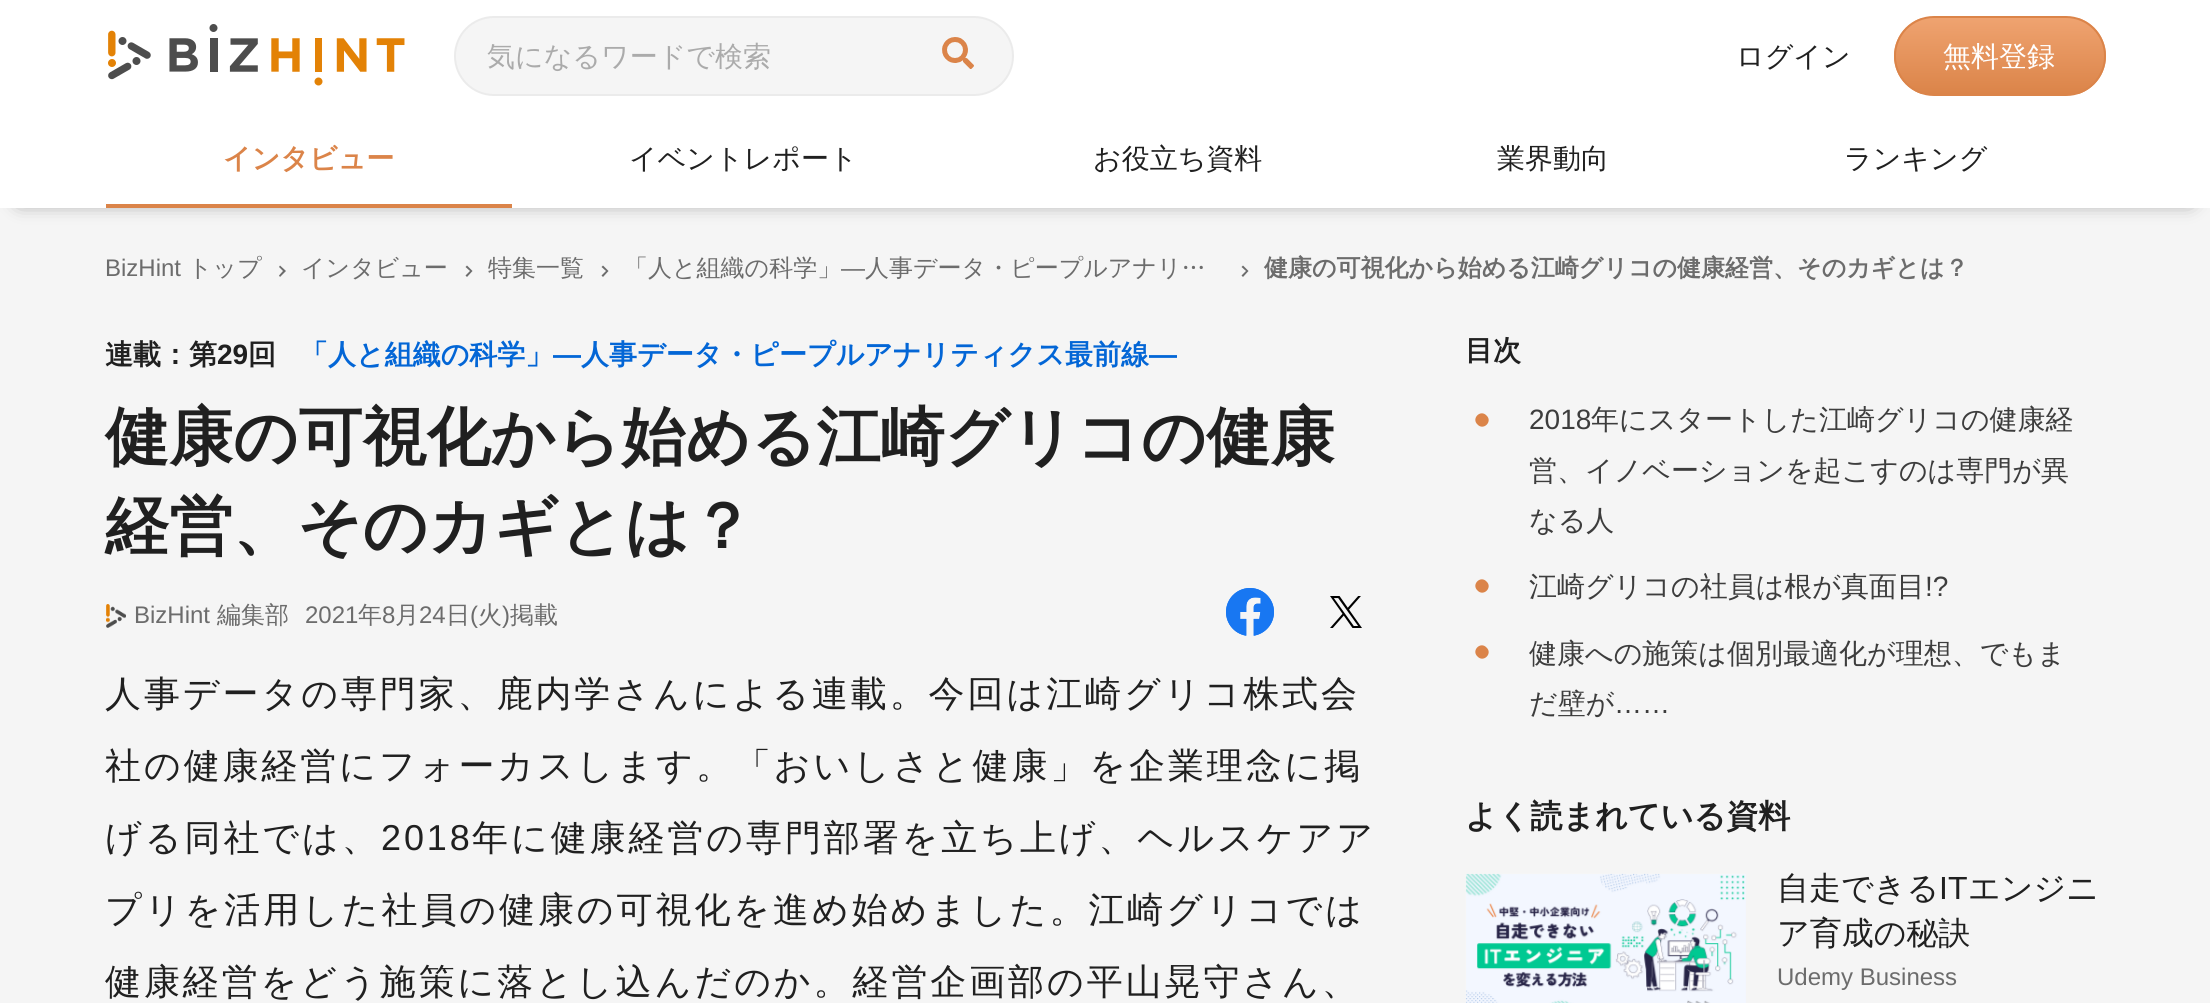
#include <cairo.h>
#include <math.h>
#include <stddef.h>

static cairo_t *c;
static void C(unsigned color){cairo_set_source_rgb(c, (color >> 16) / 255.0, (color >> 8 & 255) / 255.0, (color & 255) / 255.0);}
static void F(const char *family, double size, int italic, int bold){cairo_select_font_face(c, family, italic ? CAIRO_FONT_SLANT_ITALIC : CAIRO_FONT_SLANT_NORMAL,bold ? CAIRO_FONT_WEIGHT_BOLD : CAIRO_FONT_WEIGHT_NORMAL);cairo_set_font_size(c, size);}
static void T(double x, double y, const char *s){cairo_move_to(c, x, y);cairo_show_text(c, s);}
static void L(double x, double y, const char *s, double letter, double word){cairo_move_to(c, x, y);while (*s) {char ch[5] = {0};int n = 0;do ch[n++] = *s++; while ((*s & 0xC0) == 0x80);cairo_show_text(c, ch);cairo_rel_move_to(c, letter + word * (*ch == ' '), 0);}}
static void R(double x, double y, double w, double h){cairo_rectangle(c, x, y, w, h);cairo_fill(c);}
static void Q(double x, double y, double w, double h, double r){cairo_new_sub_path(c);cairo_arc(c, x + w - r, y + h - r, r, 0, M_PI / 2);cairo_arc(c, x + r, y + h - r, r, M_PI / 2, M_PI);cairo_arc(c, x + r, y + r, r, M_PI, 1.5 * M_PI);cairo_arc(c, x + w - r, y + r, r, 1.5 * M_PI, 2 * M_PI);cairo_close_path(c);}
static void S(double x, double y, double w, double h, double r, double blur, double alpha){cairo_push_group_with_content(c, CAIRO_CONTENT_ALPHA);cairo_set_operator(c, CAIRO_OPERATOR_SOURCE);for (int i = 15; i >= -15 && fmin(w, h) + blur * i / 3 > 0; i -= 2) {double e = blur * i / 6;cairo_set_source_rgba(c, 0, 0, 0, alpha * erfc((i - 1) / 8.5) / 2);Q(x - e, y - e, w + 2 * e, h + 2 * e, fmax(0, fmin(r + e + blur * .6, fmin(w, h) / 2 + e)));cairo_fill(c);}cairo_pattern_t *soft = cairo_pop_group(c);cairo_mask(c, soft);cairo_pattern_destroy(soft);}
static void I(const char *path, double x, double y, double w, double h){cairo_surface_t *image = cairo_image_surface_create_from_png(path);cairo_save(c);cairo_set_source_surface(c, image, x, y);cairo_rectangle(c, x, y, w, h);cairo_fill(c);cairo_restore(c);cairo_surface_destroy(image);}
int main(void) {
cairo_surface_t *surface = cairo_image_surface_create(CAIRO_FORMAT_RGB24, 2210, 1003);
c = cairo_create(surface);
cairo_font_options_t *options = cairo_font_options_create();
cairo_font_options_set_hint_metrics(options, CAIRO_HINT_METRICS_OFF);
cairo_font_options_set_hint_style(options, CAIRO_HINT_STYLE_NONE);
cairo_set_font_options(c, options);
cairo_set_miter_limit(c, 4);
cairo_pattern_t *gradient;
C(0xf5f5f5);
cairo_paint(c);
C(0x000000);
S(20,32,2170,168,0,10,.6);
C(0xffffff);
R(0,0,2210,208);
I("1.png",108,24,297,62);
C(0xf5f5f5);
Q(455,17,558,78,39);
cairo_fill_preserve(c);
C(0xebebeb);
cairo_stroke(c);
F("WenQuanYi Zen Hei Medium",28,0,0);
C(0xababab);
T(487,66,"気になるワードで検索");
I("2.png",942,37,32,32);
C(0x202020);
T(1736,66,"ログイン");
cairo_save(c);
Q(1894,16,212,80,40);
cairo_clip(c);
gradient = cairo_pattern_create_linear(2000,18,2000,94);
cairo_pattern_add_color_stop_rgba(gradient,0,0.937,0.639,0.439,1);
cairo_pattern_add_color_stop_rgba(gradient,1,0.859,0.518,0.286,1);
cairo_set_source(c,gradient);
cairo_pattern_destroy(gradient);
R(1894,18,212,76);
cairo_restore(c);
Q(1895,17,210,78,39);
C(0xdb8449);
cairo_stroke(c);
C(0xffffff);
T(1943,66,"無料登録");
C(0xdb8449);
R(106,204,406,4);
F("WenQuanYi Zen Hei",28,0,1);
T(223,168,"インタビュー");
F("WenQuanYi Zen Hei Medium",28,0,0);
C(0x202020);
T(629,168,"イベントレポート");
T(1093,168,"お役立ち資料");
T(1497,168,"業界動向");
T(1844,168,"ランキング");
F("Liberation Sans",24,0,0);
C(0x6c6c6c);
T(105,276,"BizHint");
F("WenQuanYi Zen Hei Medium",24,0,0);
T(188,276,"トップ");
cairo_new_path(c);
cairo_move_to(c,280,265.5);
cairo_line_to(c,286,271);
cairo_line_to(c,283,271);
cairo_line_to(c,279,267);
cairo_close_path(c);
cairo_move_to(c,286,271);
cairo_line_to(c,280,277);
cairo_line_to(c,279,275.5);
cairo_line_to(c,283,271);
cairo_close_path(c);
cairo_fill(c);
T(301,276,"インタビュー");
cairo_new_path(c);
cairo_move_to(c,467,265.5);
cairo_line_to(c,472.5,271);
cairo_line_to(c,470,271);
cairo_line_to(c,465.5,267);
cairo_close_path(c);
cairo_move_to(c,472.5,271);
cairo_line_to(c,467,277);
cairo_line_to(c,465.5,275.5);
cairo_line_to(c,470,271);
cairo_close_path(c);
cairo_fill(c);
T(488,276,"特集一覧");
cairo_new_path(c);
cairo_move_to(c,603,265.5);
cairo_line_to(c,608.5,271);
cairo_line_to(c,606,271);
cairo_line_to(c,601.5,267);
cairo_close_path(c);
cairo_move_to(c,608.5,271);
cairo_line_to(c,603,277);
cairo_line_to(c,601.5,275.5);
cairo_line_to(c,606,271);
cairo_close_path(c);
cairo_fill(c);
T(624,276,"「人と組織の科学」");
F("Liberation Sans",24,0,0);
T(841,276,"―");
F("WenQuanYi Zen Hei Medium",24,0,0);
T(865,276,"人事データ・ピープルアナリ…");
cairo_new_path(c);
cairo_move_to(c,1243,265.5);
cairo_line_to(c,1248.5,271);
cairo_line_to(c,1246,271);
cairo_line_to(c,1241.5,267);
cairo_close_path(c);
cairo_move_to(c,1248.5,271);
cairo_line_to(c,1243,277);
cairo_line_to(c,1241.5,275.5);
cairo_line_to(c,1246,271);
cairo_close_path(c);
cairo_fill(c);
F("WenQuanYi Zen Hei",24,0,1);
T(1264,276,"健康の可視化から始める江崎グリコの健康経営、そのカギとは？");
F("WenQuanYi Zen Hei",28,0,1);
C(0x202020);
T(105,364,"連載：第");
F("Liberation Sans",28,0,1);
T(217,364,"29");
F("WenQuanYi Zen Hei",28,0,1);
T(248,364,"回");
C(0x0366d6);
T(300,364,"「人と組織の科学」");
F("Liberation Sans",28,0,1);
T(553,364,"―");
F("WenQuanYi Zen Hei",28,0,1);
T(581,364,"人事データ・ピープルアナリティクス最前線");
F("Liberation Sans",28,0,1);
T(1149,364,"―");
F("WenQuanYi Zen Hei",64,0,1);
C(0x202020);
T(105,459,"健康の可視化から始める江崎グリコの健康");
T(105,548,"経営、そのカギとは？");
I("3.png",106,604,20,24);
F("Liberation Sans",24,0,0);
C(0x6c6c6c);
T(134,623,"BizHint");
F("WenQuanYi Zen Hei Medium",24,0,0);
T(217,623,"編集部");
F("Liberation Sans",24,0,0);
T(305,623,"2021");
F("WenQuanYi Zen Hei Medium",24,0,0);
T(358,623,"年");
F("Liberation Sans",24,0,0);
T(382,623,"8");
F("WenQuanYi Zen Hei Medium",24,0,0);
T(395,623,"月");
F("Liberation Sans",24,0,0);
T(419,623,"24");
F("WenQuanYi Zen Hei Medium",24,0,0);
T(446,623,"日");
F("Liberation Sans",24,0,0);
T(470,623,"(");
F("WenQuanYi Zen Hei Medium",24,0,0);
T(478,623,"火");
F("Liberation Sans",24,0,0);
T(502,623,")");
F("WenQuanYi Zen Hei Medium",24,0,0);
T(510,623,"掲載");
I("4.png",1226,588,48,48);
I("5.png",1330,596,32,32);
F("WenQuanYi Zen Hei Medium",36,0,0);
C(0x202020);
L(105,706,"人事データの専門家、鹿内学さんによる連載。今回は江崎グリコ株式会",2.9,0);
L(105,778,"社の健康経営にフォーカスします。「おいしさと健康」を企業理念に掲",2.9,0);
L(105,850,"げる同社では、",2.9,0);
F("Liberation Sans",36,0,0);
L(381,850,"2018",2.9,0);
F("WenQuanYi Zen Hei Medium",36,0,0);
L(472,850,"年に健康経営の専門部署を立ち上げ、ヘルスケアア",2.9,0);
L(105,922,"プリを活用した社員の健康の可視化を進め始めました。江崎グリコでは",2.9,0);
L(105,994,"健康経営をどう施策に落とし込んだのか。経営企画部の平山晃守さん、",2.9,0);
F("WenQuanYi Zen Hei",28,0,1);
T(1465,360,"目次");
C(0xdb8449);
cairo_new_path(c);
cairo_move_to(c,1477.5,424.5);
cairo_curve_to(c,1471,418.5,1480.5,409,1486.5,415.5);
cairo_curve_to(c,1493,421.5,1483.5,431,1477.5,424.5);
cairo_close_path(c);
cairo_fill(c);
F("Liberation Sans",28,0,0);
C(0x3d3d3d);
T(1529,429,"2018");
F("WenQuanYi Zen Hei Medium",28,0,0);
T(1591,429,"年にスタートした江崎グリコの健康経");
T(1529,480,"営、イノベーションを起こすのは専門が異");
T(1529,530,"なる人");
C(0xdb8449);
cairo_new_path(c);
cairo_move_to(c,1477.5,590.5);
cairo_curve_to(c,1471,584.5,1480.5,575,1486.5,581.5);
cairo_curve_to(c,1493,587.5,1483.5,597,1477.5,590.5);
cairo_close_path(c);
cairo_fill(c);
C(0x3d3d3d);
T(1529,596,"江崎グリコの社員は根が真面目");
F("Liberation Sans",28,0,0);
T(1925,596,"!?");
C(0xdb8449);
cairo_new_path(c);
cairo_move_to(c,1477.5,656.5);
cairo_curve_to(c,1471,650.5,1480.5,641,1486.5,647.5);
cairo_curve_to(c,1493,653.5,1483.5,663,1477.5,656.5);
cairo_close_path(c);
cairo_fill(c);
F("WenQuanYi Zen Hei Medium",28,0,0);
C(0x3d3d3d);
T(1529,663,"健康への施策は個別最適化が理想、でもま");
T(1529,713,"だ壁が");
F("Liberation Sans",28,0,0);
T(1614,713,"……");
F("WenQuanYi Zen Hei",32,0,1);
C(0x202020);
T(1465,827,"よく読まれている資料");
I("6.png",1465,873,281,130);
F("WenQuanYi Zen Hei Medium",32,0,0);
T(1777,899,"自走できる");
F("Liberation Sans",32,0,0);
T(1939,899,"IT");
F("WenQuanYi Zen Hei Medium",32,0,0);
T(1968,899,"エンジニ");
T(1777,944,"ア育成の秘訣");
F("Liberation Sans",24,0,0);
C(0x6c6c6c);
T(1777,985,"Udemy Business");
cairo_surface_write_to_png(surface, "o.png");
cairo_font_options_destroy(options);
cairo_destroy(c);
cairo_surface_destroy(surface);
return 0;
}
